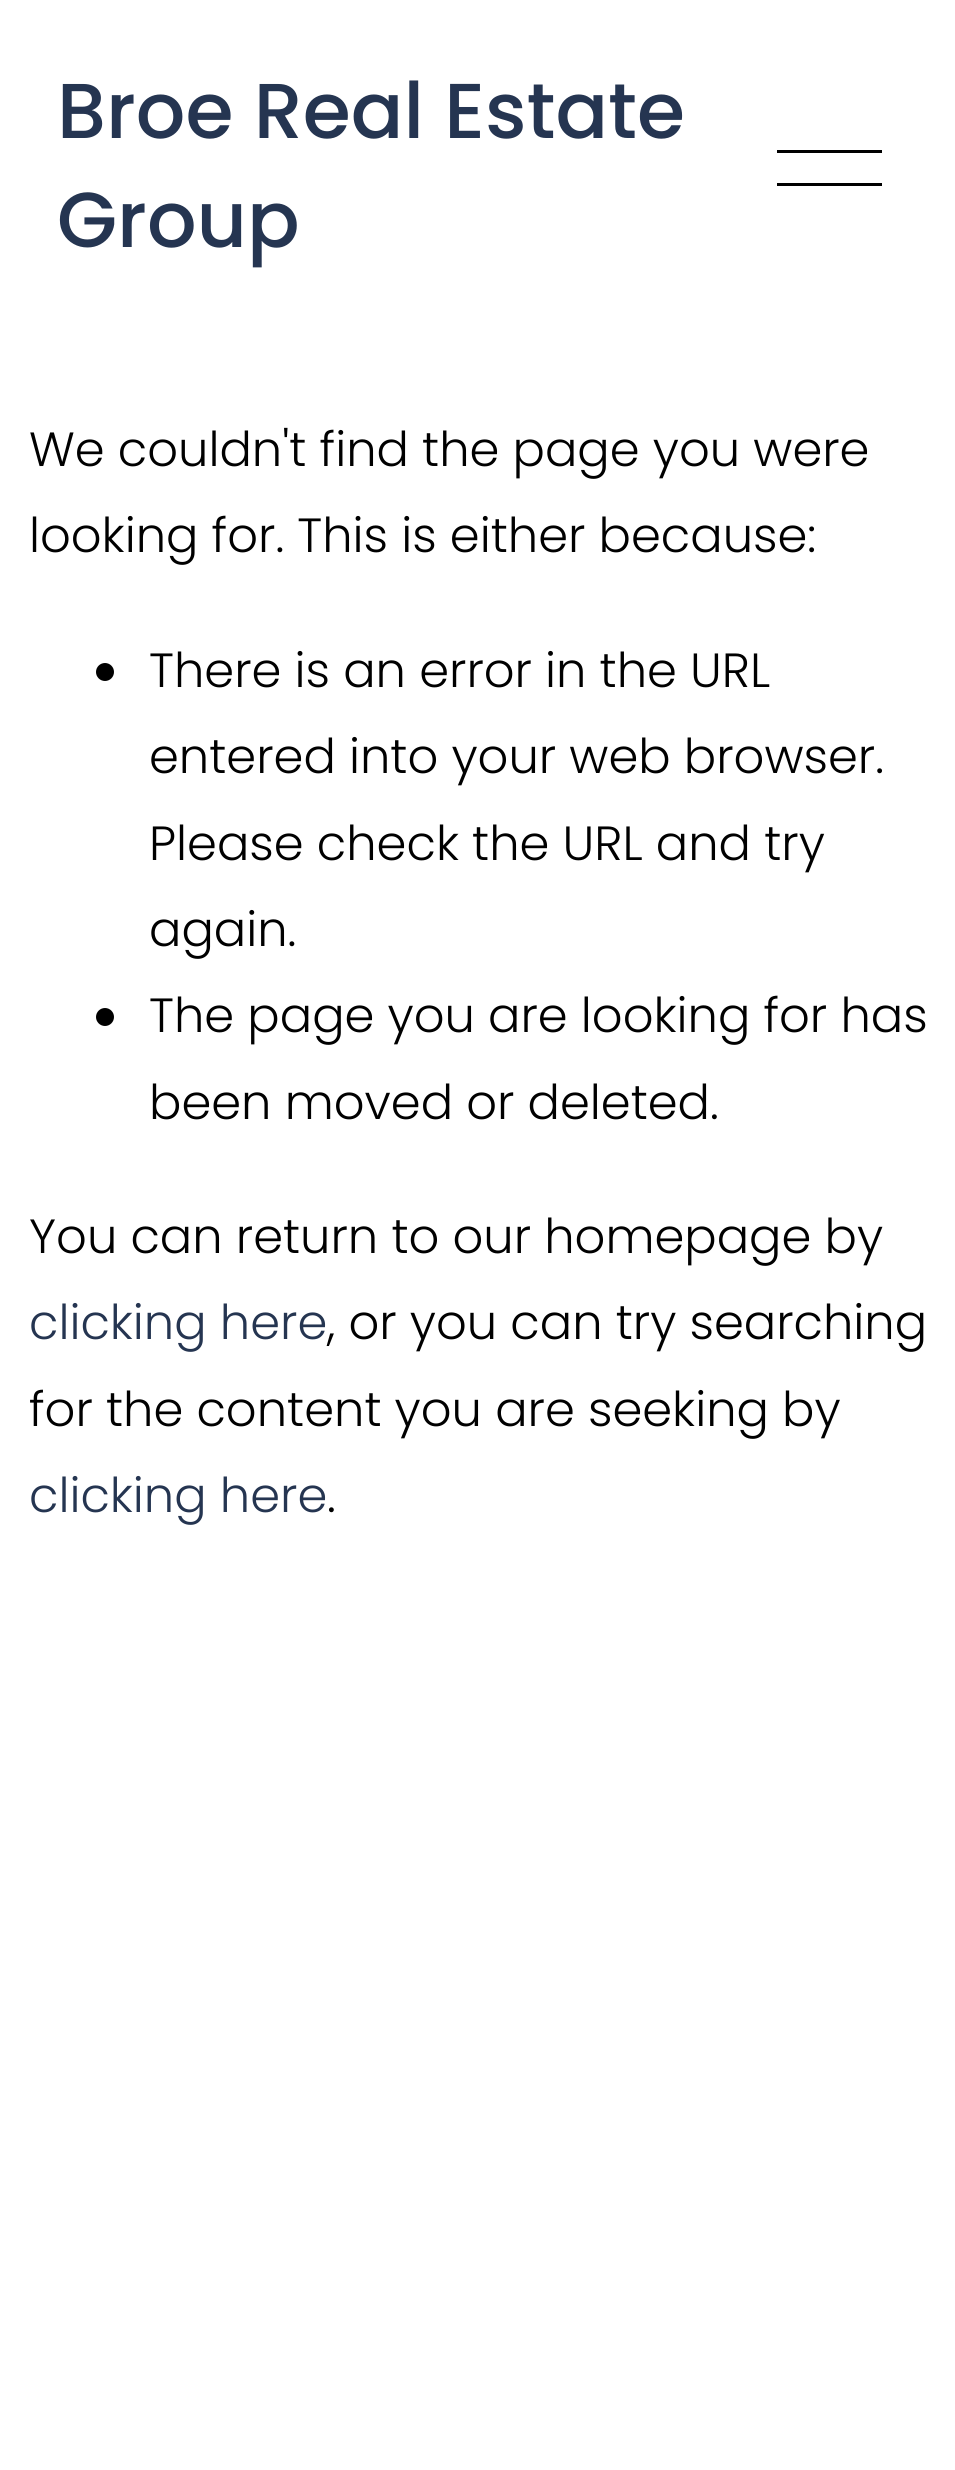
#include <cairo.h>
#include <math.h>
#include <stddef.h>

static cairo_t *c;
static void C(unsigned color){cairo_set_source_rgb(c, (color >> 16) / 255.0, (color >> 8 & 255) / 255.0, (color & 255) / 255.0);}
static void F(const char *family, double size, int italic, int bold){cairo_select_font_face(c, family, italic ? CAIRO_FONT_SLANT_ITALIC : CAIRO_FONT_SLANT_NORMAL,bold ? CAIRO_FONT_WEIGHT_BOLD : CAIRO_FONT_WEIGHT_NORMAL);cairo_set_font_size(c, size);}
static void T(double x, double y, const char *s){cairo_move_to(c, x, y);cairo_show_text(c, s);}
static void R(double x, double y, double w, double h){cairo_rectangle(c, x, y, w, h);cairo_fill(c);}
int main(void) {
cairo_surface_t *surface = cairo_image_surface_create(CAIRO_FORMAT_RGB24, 955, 2470);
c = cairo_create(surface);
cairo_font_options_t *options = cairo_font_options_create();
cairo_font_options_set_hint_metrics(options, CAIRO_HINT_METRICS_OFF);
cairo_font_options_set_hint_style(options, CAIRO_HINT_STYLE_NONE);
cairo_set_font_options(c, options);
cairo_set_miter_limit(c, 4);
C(0xffffff);
cairo_paint(c);
F("Poppins Medium",77.75,0,0);
C(0x253551);
T(57,138,"Broe Real Estate");
T(57,247,"Group");
C(0x000000);
R(777,150,105,3);
R(777,183,105,3);
F("Poppins Light",48,0,0);
T(29,466,"We couldn't find the page you were");
T(29,552,"looking for. This is either because:");
cairo_new_path(c);
cairo_arc(c,105,672,9,0,2 * M_PI);
cairo_fill(c);
T(149,687,"There is an error in the URL");
T(149,773,"entered into your web browser.");
T(149,860,"Please check the URL and try");
T(149,946,"again.");
cairo_new_path(c);
cairo_arc(c,105,1017,9,0,2 * M_PI);
cairo_fill(c);
T(149,1032,"The page you are looking for has");
T(149,1119,"been moved or deleted.");
T(29,1253,"You can return to our homepage by");
C(0x253551);
T(29,1339,"clicking here");
C(0x000000);
T(327,1339,", or you can try searching");
T(29,1426,"for the content you are seeking by");
C(0x253551);
T(29,1512,"clicking here");
C(0x000000);
T(327,1512,".");
cairo_surface_write_to_png(surface, "o.png");
cairo_font_options_destroy(options);
cairo_destroy(c);
cairo_surface_destroy(surface);
return 0;
}
